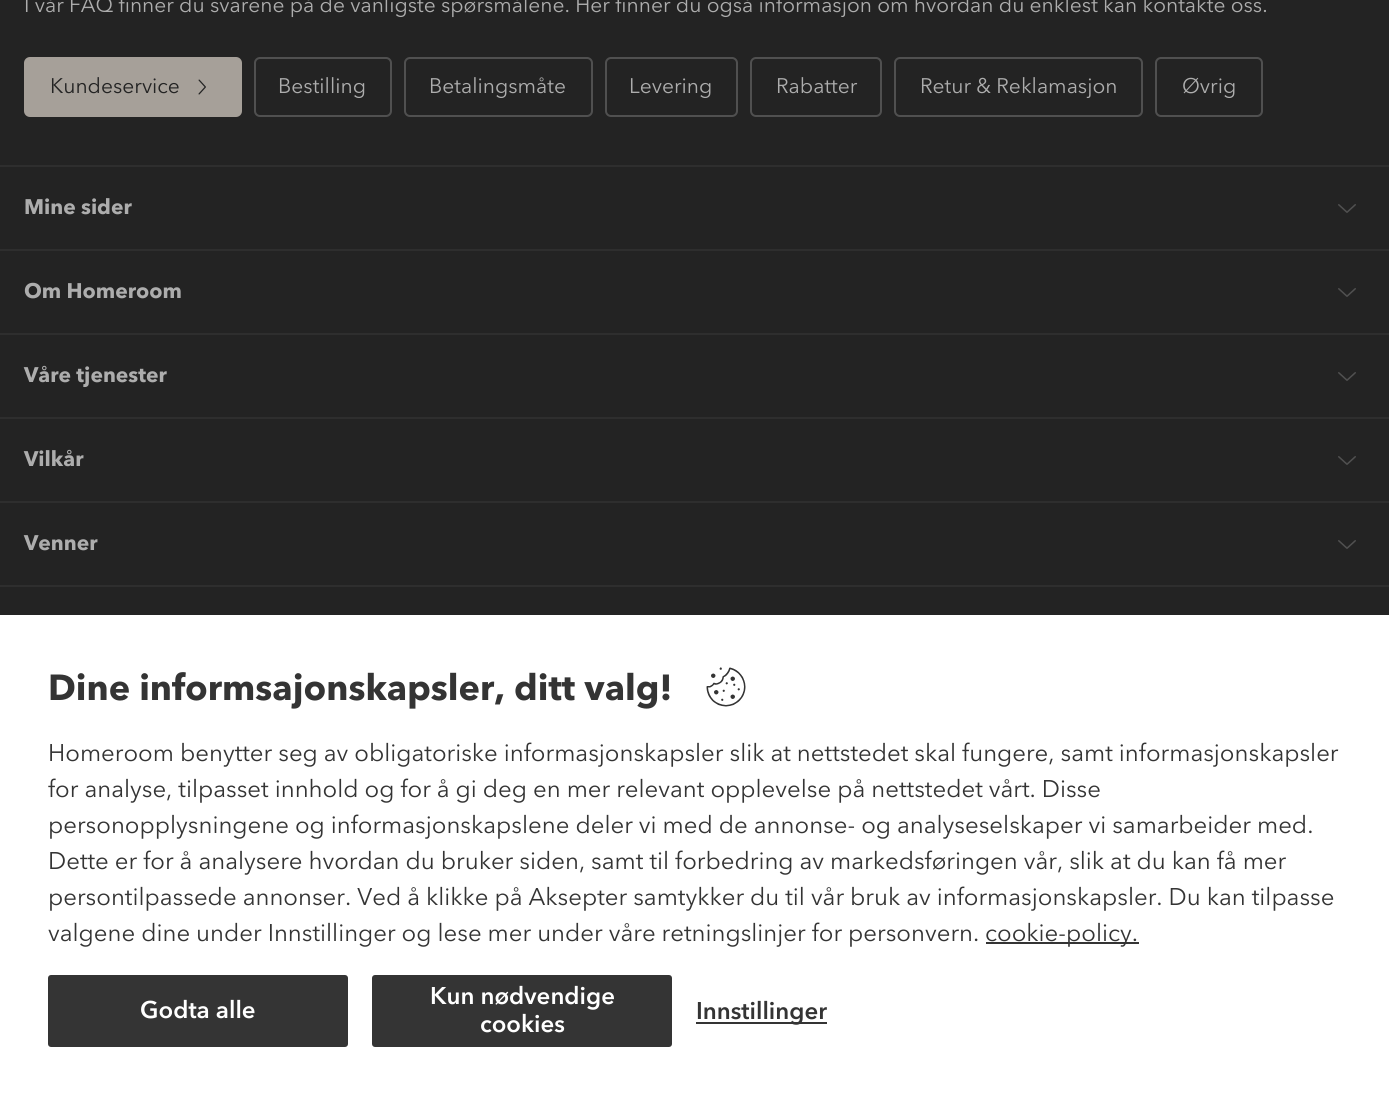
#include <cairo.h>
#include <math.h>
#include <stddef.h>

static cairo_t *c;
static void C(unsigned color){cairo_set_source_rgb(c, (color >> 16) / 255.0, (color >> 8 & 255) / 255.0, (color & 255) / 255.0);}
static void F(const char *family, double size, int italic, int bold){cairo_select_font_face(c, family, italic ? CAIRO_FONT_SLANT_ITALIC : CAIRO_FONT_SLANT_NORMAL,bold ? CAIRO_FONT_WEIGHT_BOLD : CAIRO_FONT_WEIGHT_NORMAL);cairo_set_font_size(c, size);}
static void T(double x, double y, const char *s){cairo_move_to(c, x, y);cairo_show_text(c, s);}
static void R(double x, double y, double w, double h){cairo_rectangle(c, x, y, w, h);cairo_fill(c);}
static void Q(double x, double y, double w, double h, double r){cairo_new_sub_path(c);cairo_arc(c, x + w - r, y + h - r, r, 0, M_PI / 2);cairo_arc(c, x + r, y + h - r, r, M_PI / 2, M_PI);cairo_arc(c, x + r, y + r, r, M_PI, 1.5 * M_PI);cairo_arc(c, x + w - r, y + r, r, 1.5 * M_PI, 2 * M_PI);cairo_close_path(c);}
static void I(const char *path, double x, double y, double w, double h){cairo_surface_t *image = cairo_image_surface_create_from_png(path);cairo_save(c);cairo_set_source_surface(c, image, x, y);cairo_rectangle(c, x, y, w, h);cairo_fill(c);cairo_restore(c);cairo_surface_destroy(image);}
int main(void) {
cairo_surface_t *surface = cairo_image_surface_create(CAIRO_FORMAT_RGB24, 1389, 1094);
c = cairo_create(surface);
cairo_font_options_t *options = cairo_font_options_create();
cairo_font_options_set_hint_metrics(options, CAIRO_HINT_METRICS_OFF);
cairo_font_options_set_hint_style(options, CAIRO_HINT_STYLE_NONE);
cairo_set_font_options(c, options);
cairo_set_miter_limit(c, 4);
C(0x232323);
cairo_paint(c);
F("Avenir",21,0,0);
C(0xadadad);
T(24,12,"I vår FAQ finner du svarene på de vanligste spørsmålene. Her finner du også informasjon om hvordan du enklest kan kontakte oss.");
C(0xa6a099);
Q(25,58,216,58,5);
cairo_fill_preserve(c);
cairo_stroke(c);
C(0x232323);
T(50,93,"Kundeservice");
I("1.png",198,79,8,16);
Q(255,58,136,58,5);
C(0x505050);
cairo_stroke(c);
C(0xadadad);
T(278,93,"Bestilling");
Q(405,58,187,58,5);
C(0x505050);
cairo_stroke(c);
C(0xadadad);
T(429,93,"Betalingsmåte");
Q(606,58,131,58,5);
C(0x505050);
cairo_stroke(c);
C(0xadadad);
T(629,93,"Levering");
Q(751,58,130,58,5);
C(0x505050);
cairo_stroke(c);
C(0xadadad);
T(776,93,"Rabatter");
Q(895,58,247,58,5);
C(0x505050);
cairo_stroke(c);
C(0xadadad);
T(920,93,"Retur & Reklamasjon");
Q(1156,58,106,58,5);
C(0x505050);
cairo_stroke(c);
C(0xadadad);
T(1182,93,"Øvrig");
C(0x2e2e2e);
R(0,165,1389,2);
F("Avenir",21,0,1);
C(0xadadad);
T(24,214,"Mine sider");
I("2.png",1338,204,18,9);
C(0x2e2e2e);
R(0,249,1389,2);
C(0xadadad);
T(24,298,"Om Homeroom");
I("2.png",1338,288,18,9);
C(0x2e2e2e);
R(0,333,1389,2);
C(0xadadad);
T(24,382,"Våre tjenester");
I("2.png",1338,372,18,9);
C(0x2e2e2e);
R(0,417,1389,2);
C(0xadadad);
T(24,466,"Vilkår");
I("2.png",1338,456,18,9);
C(0x2e2e2e);
R(0,585,1389,2);
R(0,501,1389,2);
C(0xadadad);
T(24,550,"Venner");
I("2.png",1338,540,18,9);
C(0xffffff);
R(0,615,1389,479);
F("Avenir",36,0,1);
C(0x343434);
T(48,700,"Dine informsajonskapsler, ditt valg!");
I("3.png",706,667,40,40);
F("Avenir",24,0,0);
T(48,761,"Homeroom benytter seg av obligatoriske informasjonskapsler slik at nettstedet skal fungere, samt informasjonskapsler");
T(48,797,"for analyse, tilpasset innhold og for å gi deg en mer relevant opplevelse på nettstedet vårt. Disse");
T(48,833,"personopplysningene og informasjonskapslene deler vi med de annonse- og analyseselskaper vi samarbeider med.");
T(48,869,"Dette er for å analysere hvordan du bruker siden, samt til forbedring av markedsføringen vår, slik at du kan få mer");
T(48,905,"persontilpassede annonser. Ved å klikke på Aksepter samtykker du til vår bruk av informasjonskapsler. Du kan tilpasse");
T(48,941,"valgene dine under Innstillinger og lese mer under våre retningslinjer for personvern.");
R(986,942,153,2);
T(985,941,"cookie-policy.");
Q(48,975,300,72,3);
cairo_fill(c);
F("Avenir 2",24,0,1);
C(0xffffff);
T(140,1018,"Godta alle");
C(0x343434);
Q(372,975,300,72,3);
cairo_fill(c);
C(0xffffff);
T(430,1004,"Kun nødvendige");
T(480,1032,"cookies");
C(0x343434);
R(696,1022,131,2);
T(696,1019,"Innstillinger");
cairo_surface_write_to_png(surface, "o.png");
cairo_font_options_destroy(options);
cairo_destroy(c);
cairo_surface_destroy(surface);
return 0;
}
